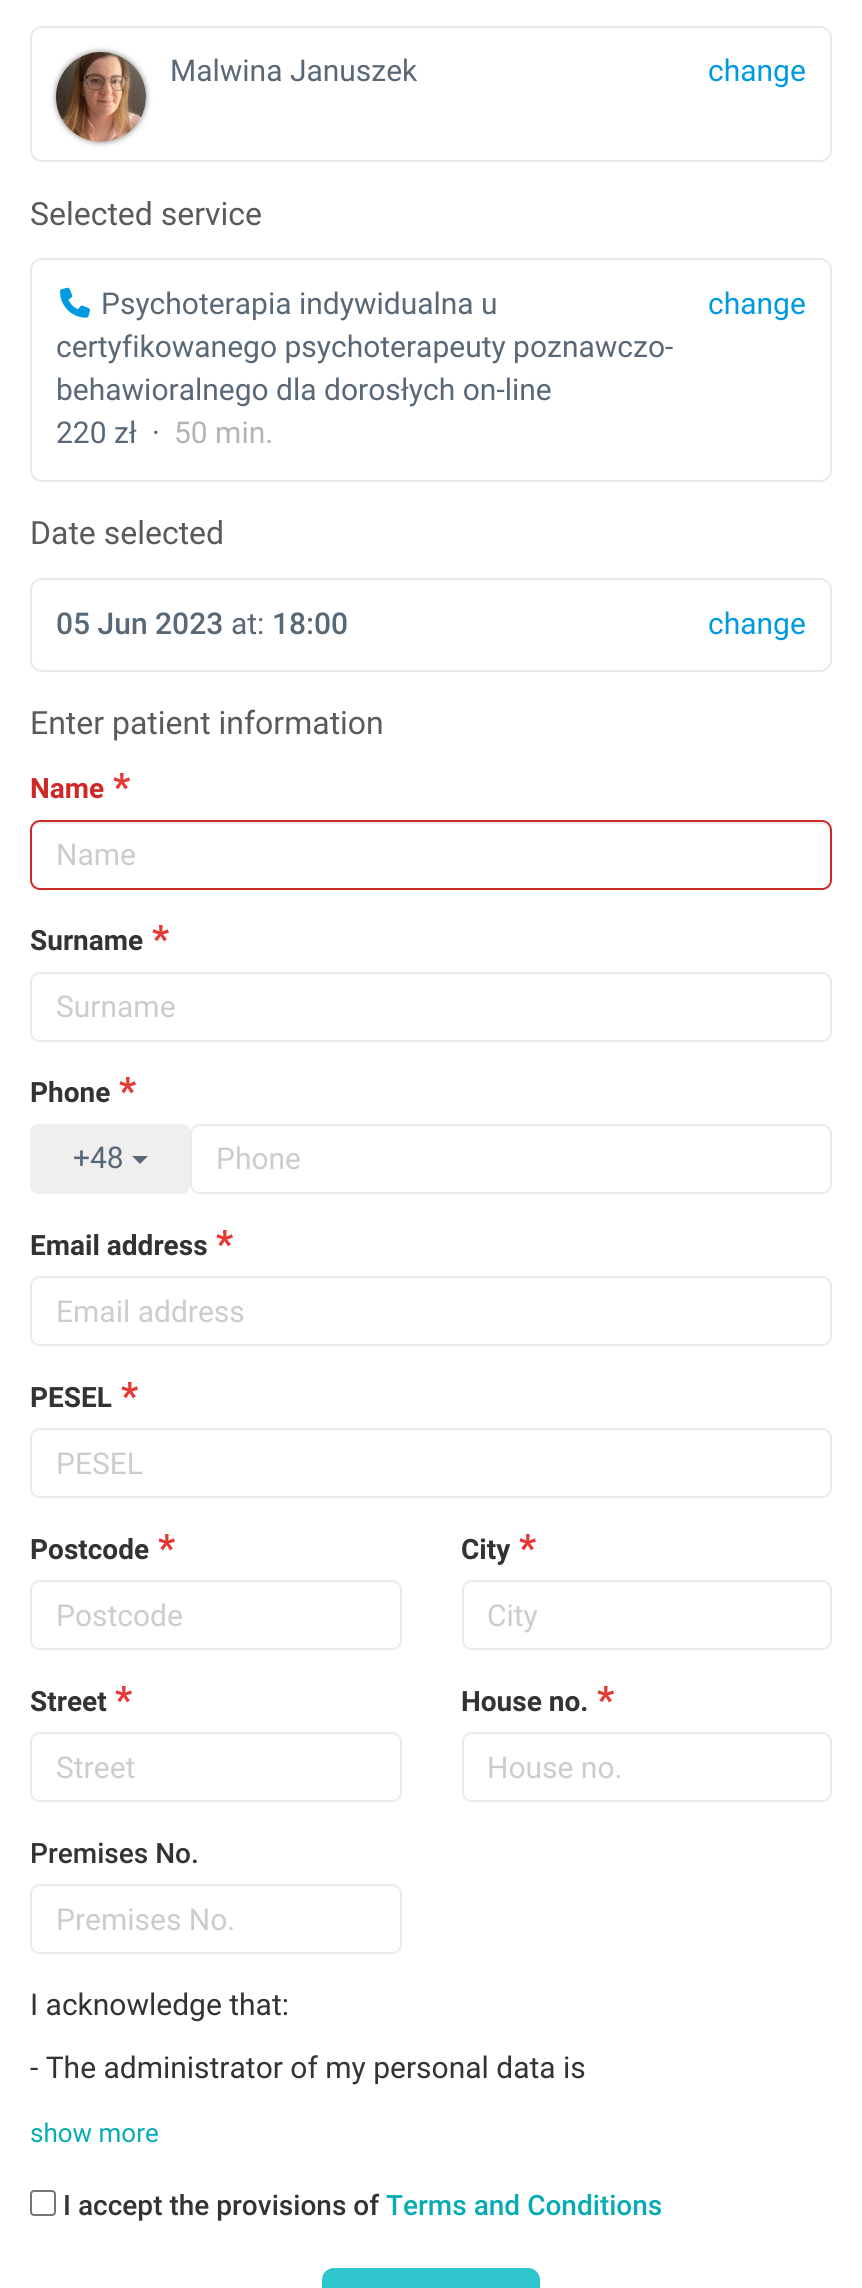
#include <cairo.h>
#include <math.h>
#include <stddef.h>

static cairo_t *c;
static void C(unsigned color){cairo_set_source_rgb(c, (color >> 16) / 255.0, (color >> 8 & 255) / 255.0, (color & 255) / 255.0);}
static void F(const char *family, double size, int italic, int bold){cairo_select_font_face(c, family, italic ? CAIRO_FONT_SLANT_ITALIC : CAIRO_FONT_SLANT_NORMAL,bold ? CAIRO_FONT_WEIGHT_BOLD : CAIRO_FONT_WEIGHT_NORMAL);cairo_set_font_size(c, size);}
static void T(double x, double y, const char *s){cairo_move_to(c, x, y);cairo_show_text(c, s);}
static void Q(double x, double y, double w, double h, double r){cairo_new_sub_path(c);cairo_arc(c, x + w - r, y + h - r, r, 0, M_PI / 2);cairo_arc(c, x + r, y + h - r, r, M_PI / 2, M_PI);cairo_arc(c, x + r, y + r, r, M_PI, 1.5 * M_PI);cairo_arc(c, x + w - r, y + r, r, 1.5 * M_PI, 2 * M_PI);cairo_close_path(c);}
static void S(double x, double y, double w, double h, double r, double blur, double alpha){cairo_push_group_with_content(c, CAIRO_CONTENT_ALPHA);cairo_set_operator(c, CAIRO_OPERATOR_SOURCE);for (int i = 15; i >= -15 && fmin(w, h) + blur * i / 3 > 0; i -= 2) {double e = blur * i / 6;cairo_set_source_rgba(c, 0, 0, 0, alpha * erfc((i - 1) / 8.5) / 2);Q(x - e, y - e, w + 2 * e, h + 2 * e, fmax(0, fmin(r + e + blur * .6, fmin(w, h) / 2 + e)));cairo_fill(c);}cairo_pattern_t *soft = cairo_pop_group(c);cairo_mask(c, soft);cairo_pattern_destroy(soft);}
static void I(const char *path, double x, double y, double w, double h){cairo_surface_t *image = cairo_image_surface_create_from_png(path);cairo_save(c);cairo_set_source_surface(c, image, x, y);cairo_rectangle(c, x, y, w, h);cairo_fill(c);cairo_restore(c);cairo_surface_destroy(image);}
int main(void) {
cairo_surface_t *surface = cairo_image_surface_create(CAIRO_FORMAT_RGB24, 862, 2288);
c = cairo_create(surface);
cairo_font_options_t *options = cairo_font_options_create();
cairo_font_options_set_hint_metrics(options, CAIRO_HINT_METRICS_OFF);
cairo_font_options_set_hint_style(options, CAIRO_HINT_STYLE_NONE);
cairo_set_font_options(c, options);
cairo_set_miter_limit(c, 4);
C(0xffffff);
cairo_paint(c);
Q(31,27,800,134,11);
C(0xe9e9e9);
cairo_stroke(c);
C(0x000000);
S(56,52,90,90,45,3,.5);
C(0xeeeeee);
cairo_arc(c,101,97,45,0,2 * M_PI);
cairo_fill(c);
I("1.png",56,52,90,90);
F("Roboto",30,0,0);
C(0x596877);
T(170,81,"Malwina Januszek");
C(0x009ae0);
T(708,81,"change");
F("Roboto",32,0,0);
C(0x5a5a5a);
T(30,225,"Selected service");
Q(31,259,800,222,11);
C(0xe9e9e9);
cairo_stroke(c);
I("2.png",60,287,30,31);
F("Roboto",30,0,0);
C(0x596877);
T(101,314,"Psychoterapia indywidualna u");
C(0x009ae0);
T(708,314,"change");
C(0x596877);
T(56,357,"certyfikowanego psychoterapeuty poznawczo-");
T(56,400,"behawioralnego dla dorosłych on-line");
T(56,443,"220 zł");
T(152,443,"·");
C(0xb3b3b3);
T(174,443,"50 min.");
F("Roboto",32,0,0);
C(0x5a5a5a);
T(30,544,"Date selected");
Q(31,579,800,92,11);
C(0xe9e9e9);
cairo_stroke(c);
F("Roboto Medium",30,0,0);
C(0x596877);
T(56,634,"05 Jun 2023");
F("Roboto",30,0,0);
T(231,634,"at:");
F("Roboto Medium",30,0,0);
T(272,634,"18:00");
F("Roboto",30,0,0);
C(0x009ae0);
T(708,634,"change");
F("Roboto",32,0,0);
C(0x5a5a5a);
T(30,734,"Enter patient information");
F("Roboto",28,0,1);
C(0xcf2927);
T(30,798,"Name");
F("Roboto",38,0,1);
C(0xe53935);
T(113,800,"*");
C(0xececec);
cairo_new_path(c);
cairo_move_to(c,40,824);
cairo_line_to(c,822,824);
cairo_curve_to(c,826,824,830,828,830,832);
cairo_curve_to(c,830,827,828,822,822,822);
cairo_line_to(c,40,822);
cairo_curve_to(c,34,822,32,827,32,832);
cairo_curve_to(c,32,828,36,824,40,824);
cairo_close_path(c);
cairo_fill(c);
Q(31,821,800,68,9);
C(0xcf2927);
cairo_stroke(c);
F("Roboto",30,0,0);
C(0xcccccc);
T(56,865,"Name");
F("Roboto",28,0,1);
C(0x333333);
T(30,950,"Surname");
F("Roboto",38,0,1);
C(0xe53935);
T(152,952,"*");
Q(31,973,800,68,9);
C(0xe7ebef);
cairo_stroke(c);
F("Roboto",30,0,0);
C(0xcccccc);
T(56,1017,"Surname");
F("Roboto",28,0,1);
C(0x333333);
T(30,1102,"Phone");
F("Roboto",38,0,1);
C(0xe53935);
T(119,1104,"*");
C(0xefefef);
Q(30,1124,160,70,8);
cairo_fill(c);
F("Roboto",30,0,0);
C(0x596877);
T(73,1168,"+48");
cairo_new_path(c);
cairo_move_to(c,132,1156);
cairo_line_to(c,148,1156);
cairo_line_to(c,140,1164);
cairo_close_path(c);
cairo_fill(c);
Q(191,1125,640,68,9);
C(0xe7ebef);
cairo_stroke(c);
C(0xcccccc);
T(216,1169,"Phone");
F("Roboto",28,0,1);
C(0x333333);
T(30,1255,"Email address");
F("Roboto",38,0,1);
C(0xe53935);
T(216,1257,"*");
Q(31,1277,800,68,9);
C(0xe7ebef);
cairo_stroke(c);
F("Roboto",30,0,0);
C(0xcccccc);
T(56,1322,"Email address");
F("Roboto",28,0,1);
C(0x333333);
T(30,1407,"PESEL");
F("Roboto",38,0,1);
C(0xe53935);
T(121,1409,"*");
Q(31,1429,800,68,9);
C(0xe7ebef);
cairo_stroke(c);
F("Roboto",30,0,0);
C(0xcccccc);
T(56,1474,"PESEL");
F("Roboto",28,0,1);
C(0x333333);
T(30,1559,"Postcode");
F("Roboto",38,0,1);
C(0xe53935);
T(158,1561,"*");
Q(31,1581,370,68,9);
C(0xe7ebef);
cairo_stroke(c);
F("Roboto",30,0,0);
C(0xcccccc);
T(56,1626,"Postcode");
F("Roboto",28,0,1);
C(0x333333);
T(461,1559,"City");
F("Roboto",38,0,1);
C(0xe53935);
T(519,1561,"*");
Q(463,1581,368,68,9);
C(0xe7ebef);
cairo_stroke(c);
F("Roboto",30,0,0);
C(0xcccccc);
T(487,1626,"City");
F("Roboto",28,0,1);
C(0x333333);
T(30,1711,"Street");
F("Roboto",38,0,1);
C(0xe53935);
T(115,1713,"*");
Q(31,1733,370,68,9);
C(0xe7ebef);
cairo_stroke(c);
F("Roboto",30,0,0);
C(0xcccccc);
T(56,1778,"Street");
F("Roboto",28,0,1);
C(0x333333);
T(461,1711,"House no.");
F("Roboto",38,0,1);
C(0xe53935);
T(597,1713,"*");
Q(463,1733,368,68,9);
C(0xe7ebef);
cairo_stroke(c);
F("Roboto",30,0,0);
C(0xcccccc);
T(487,1778,"House no.");
F("Roboto Medium",28,0,0);
C(0x333333);
T(30,1863,"Premises No.");
Q(31,1885,370,68,9);
C(0xe7ebef);
cairo_stroke(c);
F("Roboto",30,0,0);
C(0xcccccc);
T(56,1930,"Premises No.");
C(0x333333);
T(30,2015,"I acknowledge that:");
T(30,2078,"- The administrator of my personal data is");
F("Roboto",26,0,0);
C(0x06abb3);
T(30,2142,"show more");
Q(31,2191,24,24,3);
C(0x767676);
cairo_stroke(c);
F("Roboto Medium",28,0,0);
C(0x333333);
T(63,2215,"I accept the provisions of");
C(0x06abb3);
T(386,2215,"Terms and Conditions");
C(0x2ec5cc);
Q(322,2268,218,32,12);
cairo_fill(c);
cairo_surface_write_to_png(surface, "o.png");
cairo_font_options_destroy(options);
cairo_destroy(c);
cairo_surface_destroy(surface);
return 0;
}
